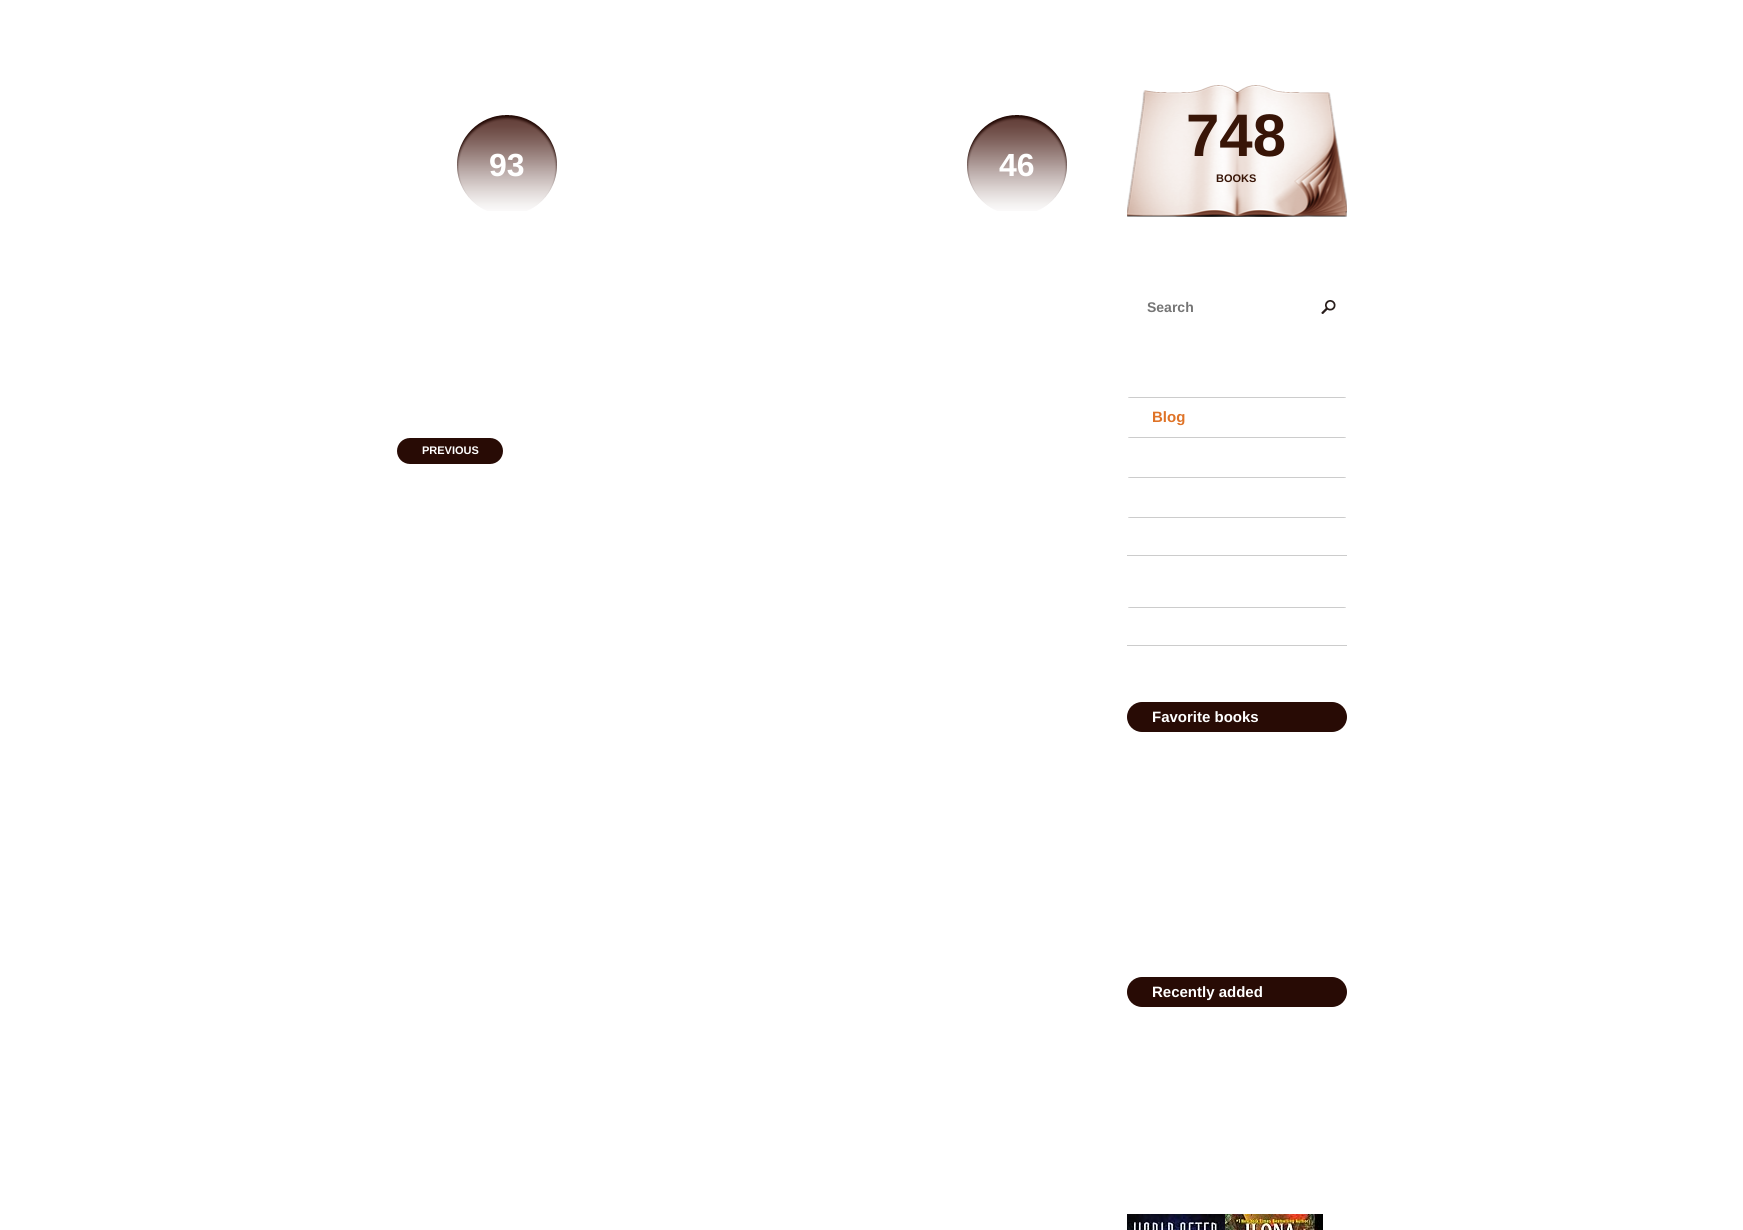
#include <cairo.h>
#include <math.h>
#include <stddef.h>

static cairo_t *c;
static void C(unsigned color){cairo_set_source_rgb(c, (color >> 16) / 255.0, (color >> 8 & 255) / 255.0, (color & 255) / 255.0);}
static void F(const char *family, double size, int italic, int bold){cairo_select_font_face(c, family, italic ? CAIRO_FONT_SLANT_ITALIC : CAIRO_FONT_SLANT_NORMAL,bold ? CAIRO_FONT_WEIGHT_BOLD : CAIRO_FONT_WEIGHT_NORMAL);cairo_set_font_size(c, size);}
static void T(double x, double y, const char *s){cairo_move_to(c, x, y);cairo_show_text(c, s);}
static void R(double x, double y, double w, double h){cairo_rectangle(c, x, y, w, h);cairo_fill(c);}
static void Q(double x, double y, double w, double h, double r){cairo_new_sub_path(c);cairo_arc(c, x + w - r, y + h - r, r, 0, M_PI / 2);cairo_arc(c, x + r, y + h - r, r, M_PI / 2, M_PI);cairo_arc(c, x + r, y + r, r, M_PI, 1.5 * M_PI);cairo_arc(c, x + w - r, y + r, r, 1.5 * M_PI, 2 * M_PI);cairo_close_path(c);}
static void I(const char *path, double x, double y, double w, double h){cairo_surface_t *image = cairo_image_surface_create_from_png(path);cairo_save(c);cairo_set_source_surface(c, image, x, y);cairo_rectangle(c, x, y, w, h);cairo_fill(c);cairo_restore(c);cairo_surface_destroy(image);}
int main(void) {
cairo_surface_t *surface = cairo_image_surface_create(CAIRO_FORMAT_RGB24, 1743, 1230);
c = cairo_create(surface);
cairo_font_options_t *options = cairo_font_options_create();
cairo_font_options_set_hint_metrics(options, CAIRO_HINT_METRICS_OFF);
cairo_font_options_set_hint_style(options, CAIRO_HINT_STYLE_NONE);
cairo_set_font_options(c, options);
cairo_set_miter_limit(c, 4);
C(0xffffff);
cairo_paint(c);
I("1.png",457,115,100,96);
F("Liberation Sans",32,0,1);
C(0xffffff);
T(489,176,"93");
I("1.png",967,115,100,96);
T(999,176,"46");
C(0x280b05);
Q(397,438,106,26,13);
cairo_fill(c);
F("Liberation Sans",11,0,1);
C(0xffffff);
T(422,454,"PREVIOUS");
I("2.png",1127,85,220,132);
F("Liberation Sans",60,0,1);
C(0x381507);
T(1186,156,"748");
F("Liberation Sans",11,0,1);
T(1216,182,"BOOKS");
I("3.png",1321,300,15,14);
F("Liberation Sans",14,0,1);
C(0x757575);
T(1147,312,"Search");
C(0xcccccc);
R(1127,555,220,1);
I("4.png",1128,397,218,1);
F("Liberation Sans",15,0,1);
C(0xdf7327);
T(1152,422,"Blog");
I("4.png",1128,437,218,1);
I("4.png",1128,477,218,1);
I("4.png",1128,517,218,1);
C(0xcccccc);
R(1127,645,220,1);
I("4.png",1128,607,218,1);
C(0x280b05);
Q(1127,702,220,30,15);
cairo_fill(c);
C(0xffffff);
T(1152,722,"Favorite books");
C(0x280b05);
Q(1127,977,220,30,15);
cairo_fill(c);
C(0xffffff);
T(1152,997,"Recently added");
I("5.png",1127,1214,98,16);
I("6.png",1225,1214,98,16);
cairo_surface_write_to_png(surface, "o.png");
cairo_font_options_destroy(options);
cairo_destroy(c);
cairo_surface_destroy(surface);
return 0;
}
